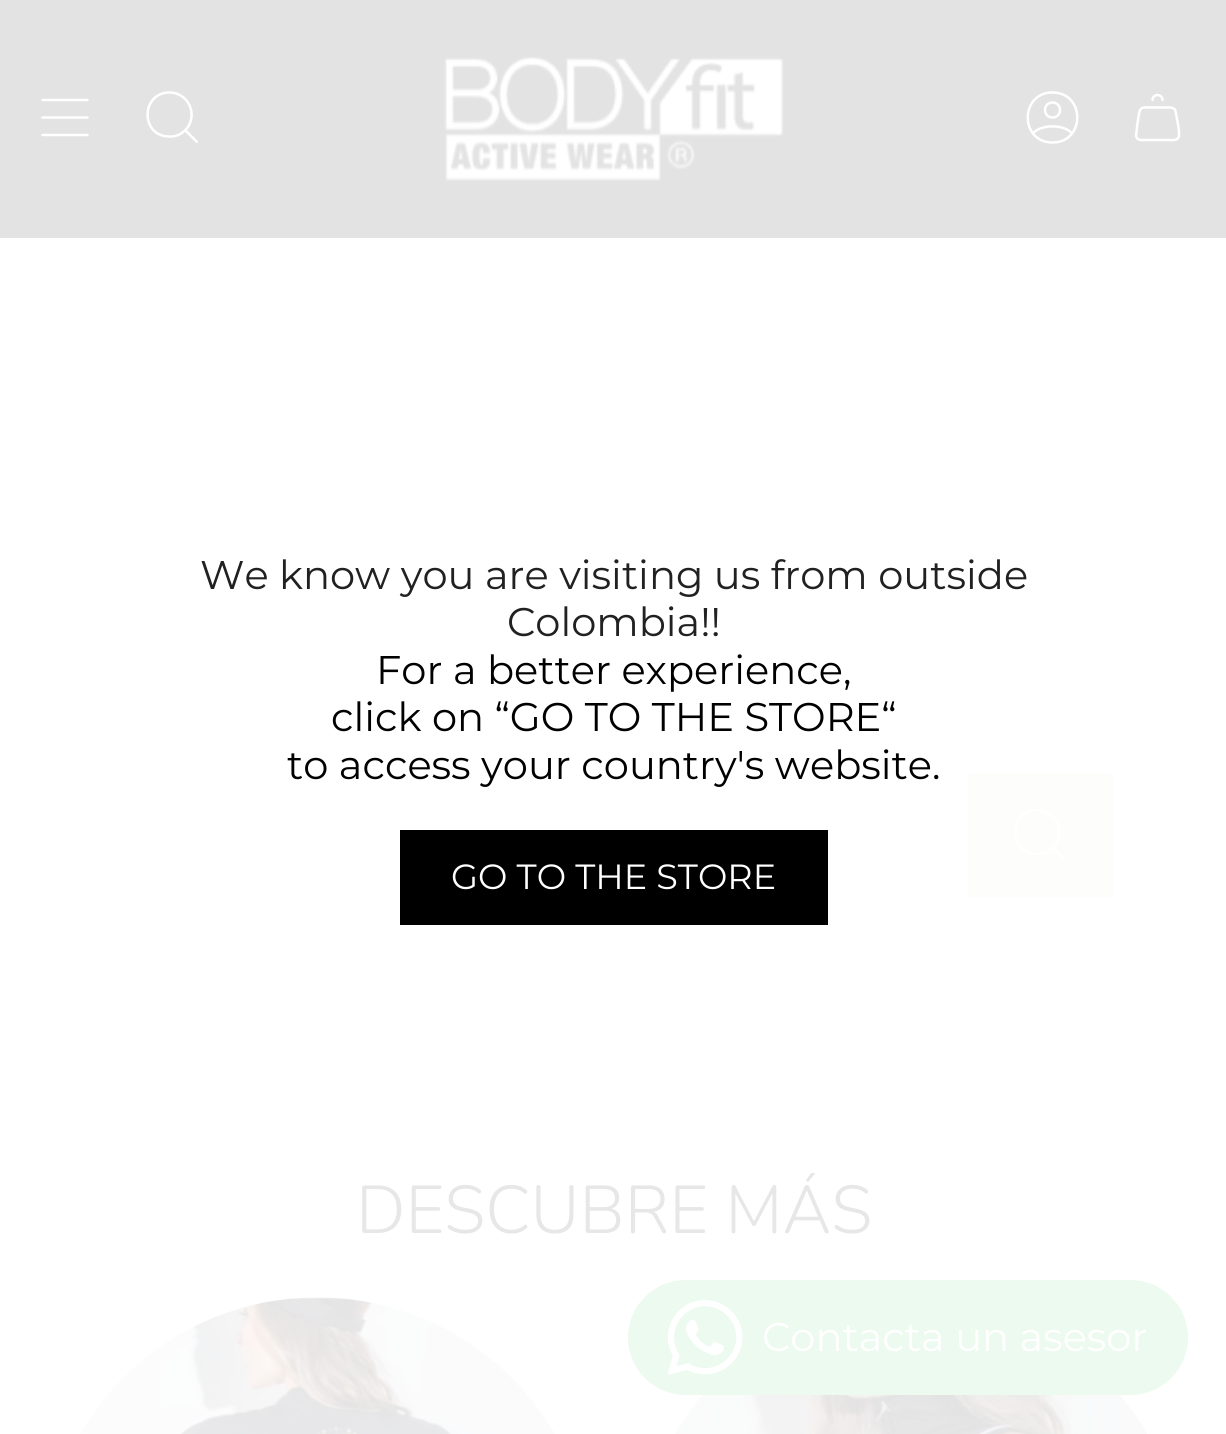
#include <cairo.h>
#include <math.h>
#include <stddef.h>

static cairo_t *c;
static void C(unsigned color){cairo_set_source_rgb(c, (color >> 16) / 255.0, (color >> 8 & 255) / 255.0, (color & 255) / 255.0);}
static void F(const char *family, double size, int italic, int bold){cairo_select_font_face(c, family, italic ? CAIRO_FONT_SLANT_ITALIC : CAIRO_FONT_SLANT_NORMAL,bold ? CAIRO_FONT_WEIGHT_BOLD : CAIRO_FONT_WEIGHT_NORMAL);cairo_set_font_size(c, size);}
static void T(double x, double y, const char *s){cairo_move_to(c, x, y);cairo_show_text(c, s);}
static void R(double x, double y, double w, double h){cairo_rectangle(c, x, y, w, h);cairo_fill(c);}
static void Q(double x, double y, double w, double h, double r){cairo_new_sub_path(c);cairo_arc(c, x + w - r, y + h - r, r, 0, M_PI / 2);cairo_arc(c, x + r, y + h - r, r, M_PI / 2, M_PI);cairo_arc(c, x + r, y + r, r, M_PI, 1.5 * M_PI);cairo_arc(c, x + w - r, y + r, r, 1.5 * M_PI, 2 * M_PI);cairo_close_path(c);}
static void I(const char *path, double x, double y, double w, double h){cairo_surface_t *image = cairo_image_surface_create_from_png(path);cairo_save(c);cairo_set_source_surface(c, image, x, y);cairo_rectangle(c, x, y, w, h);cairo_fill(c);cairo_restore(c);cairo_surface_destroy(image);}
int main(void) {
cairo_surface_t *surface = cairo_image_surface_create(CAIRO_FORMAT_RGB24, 1226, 1434);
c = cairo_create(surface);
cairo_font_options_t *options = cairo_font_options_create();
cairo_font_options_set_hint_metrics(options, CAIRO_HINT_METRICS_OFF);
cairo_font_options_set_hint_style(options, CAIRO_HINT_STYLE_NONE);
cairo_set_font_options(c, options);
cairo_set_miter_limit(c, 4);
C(0xffffff);
cairo_paint(c);
C(0xe3e3e3);
R(0,0,1226,238);
cairo_new_path(c);
cairo_move_to(c,42.5,100);
cairo_line_to(c,87.5,100);
cairo_move_to(c,42.5,117.5);
cairo_line_to(c,87.5,117.5);
cairo_move_to(c,42.5,135);
cairo_line_to(c,87.5,135);
C(0xffffff);
cairo_set_line_width(c,2.5);
cairo_set_line_cap(c,CAIRO_LINE_CAP_ROUND);
cairo_set_line_join(c,CAIRO_LINE_JOIN_ROUND);
cairo_stroke(c);
cairo_new_path(c);
cairo_move_to(c,169.5,92.5);
cairo_curve_to(c,190.5,92.5,200,119.5,182.5,132.5);
cairo_curve_to(c,178.5,135.5,173.5,137,168.5,136.5);
cairo_curve_to(c,140,135.5,141,92.5,169.5,92.5);
cairo_close_path(c);
cairo_move_to(c,185.5,130.5);
cairo_line_to(c,197.5,142.5);
cairo_set_line_cap(c,CAIRO_LINE_CAP_BUTT);
cairo_set_line_join(c,CAIRO_LINE_JOIN_MITER);
cairo_stroke(c);
I("1.png",444,56,340,125);
cairo_new_path(c);
cairo_move_to(c,1052.5,92.5);
cairo_curve_to(c,1019.5,92.5,1019.5,142.5,1052.5,142.5);
cairo_curve_to(c,1085.5,142.5,1085.5,92.5,1052.5,92.5);
cairo_close_path(c);
cairo_move_to(c,1033,133.5);
cairo_curve_to(c,1040.5,124,1064.5,124,1072,133.5);
cairo_move_to(c,1052.5,117.5);
cairo_curve_to(c,1062.5,117.5,1062.5,102.5,1052.5,102.5);
cairo_curve_to(c,1042.5,102.5,1042.5,117.5,1052.5,117.5);
cairo_close_path(c);
cairo_set_line_cap(c,CAIRO_LINE_CAP_ROUND);
cairo_set_line_join(c,CAIRO_LINE_JOIN_ROUND);
cairo_stroke(c);
cairo_new_path(c);
cairo_move_to(c,1175.5,111.5);
cairo_curve_to(c,1176.5,116,1180.5,134,1178.5,137.5);
cairo_curve_to(c,1176.5,141,1172,140,1168.5,140);
cairo_line_to(c,1146.5,140);
cairo_curve_to(c,1142.5,140,1137,141,1136,136);
cairo_line_to(c,1137.5,123);
cairo_curve_to(c,1140.5,104.5,1138.5,107.5,1157.5,107.5);
cairo_line_to(c,1166.5,107.5);
cairo_curve_to(c,1170,107.5,1175,107,1175.5,111.5);
cairo_close_path(c);
cairo_move_to(c,1162.5,100);
cairo_curve_to(c,1162.5,93.5,1152.5,93.5,1152.5,100);
cairo_stroke(c);
C(0xf6f2ec);
R(968,773,145,125);
cairo_new_path(c);
cairo_move_to(c,1037,810);
cairo_curve_to(c,1058,810,1067.5,837,1050,850);
cairo_curve_to(c,1046,853,1041,854.5,1036,854);
cairo_curve_to(c,1007.5,853,1008.5,810,1037,810);
cairo_close_path(c);
cairo_move_to(c,1053,848);
cairo_line_to(c,1065,860);
C(0xffffff);
cairo_set_line_cap(c,CAIRO_LINE_CAP_BUTT);
cairo_set_line_join(c,CAIRO_LINE_JOIN_MITER);
cairo_stroke(c);
cairo_set_source_rgba(c,1,1,1,0.83);
Q(73,463,1082,512,13);
cairo_fill(c);
F("Montserrat",40,0,0);
C(0x212121);
T(200,589,"We know you are visiting us from outside");
T(507,636,"Colombia!!");
C(0x000000);
T(376,684,"For a better experience,");
T(331,731,"click on “GO TO THE STORE“");
T(287,779,"to access your country's website.");
R(400,830,428,95);
F("Montserrat",35,0,0);
C(0xffffff);
T(451,889,"GO TO THE STORE");
cairo_save(c);
cairo_rectangle(c,0,1173,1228,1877);
cairo_clip(c);
F("Nunito Light",67.5,0,0);
C(0xe7e7e7);
T(356,1233,"DESCUBRE MÁS");
cairo_restore(c);
I("2.png",80,1297,475,137);
I("3.png",675,1395,472,39);
C(0xedfaef);
Q(628,1280,560,115,57.5);
cairo_fill(c);
I("4.png",668,1300,75,75);
F("Montserrat",40,0,0);
C(0xffffff);
T(762,1351,"Contacta un asesor");
cairo_surface_write_to_png(surface, "o.png");
cairo_font_options_destroy(options);
cairo_destroy(c);
cairo_surface_destroy(surface);
return 0;
}
